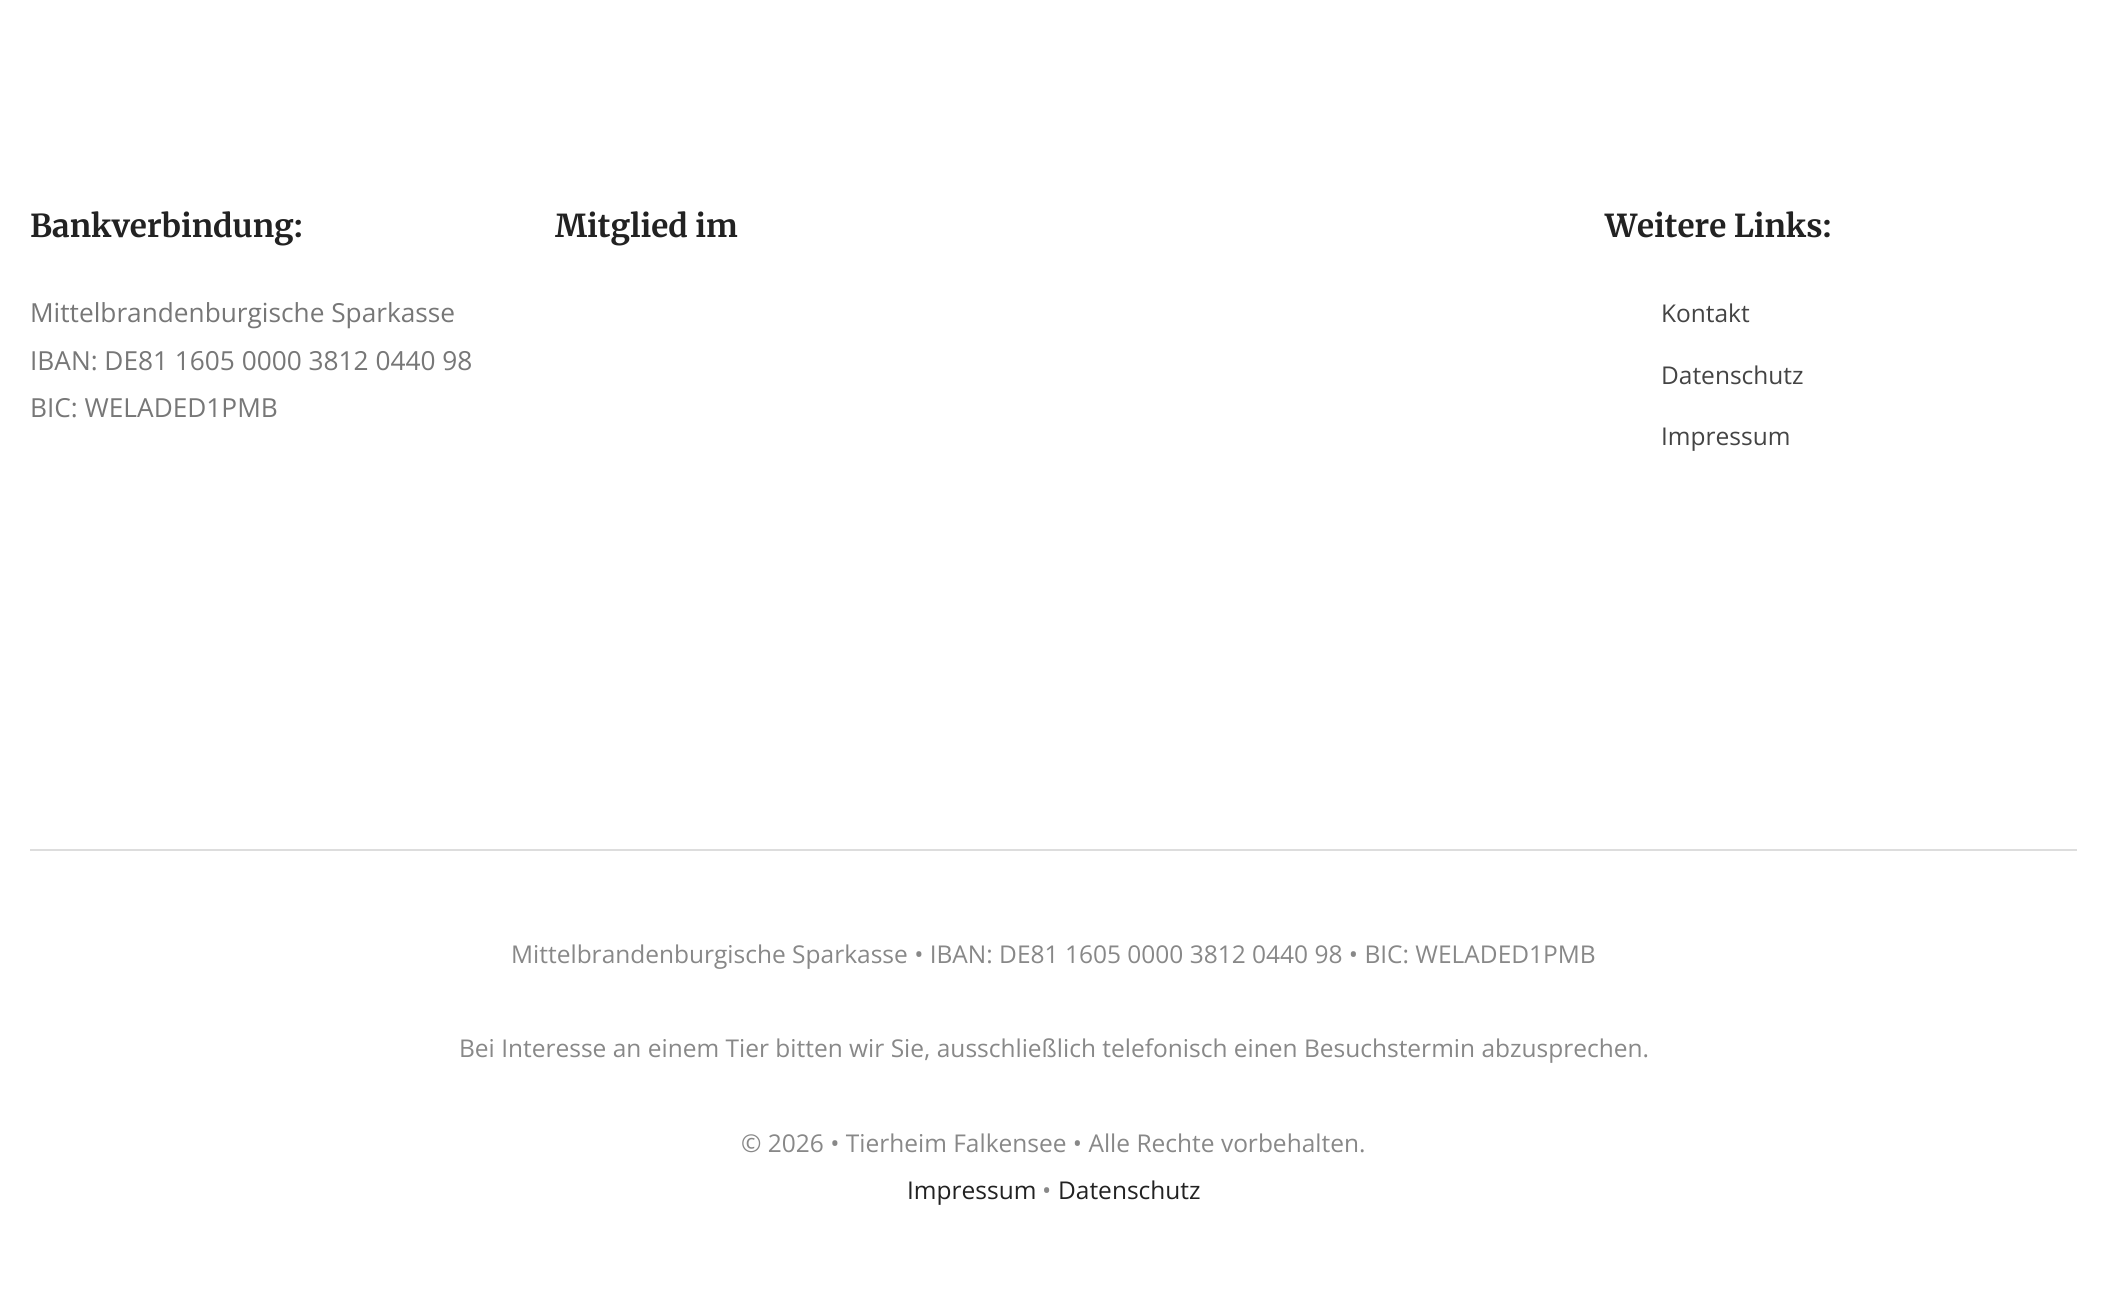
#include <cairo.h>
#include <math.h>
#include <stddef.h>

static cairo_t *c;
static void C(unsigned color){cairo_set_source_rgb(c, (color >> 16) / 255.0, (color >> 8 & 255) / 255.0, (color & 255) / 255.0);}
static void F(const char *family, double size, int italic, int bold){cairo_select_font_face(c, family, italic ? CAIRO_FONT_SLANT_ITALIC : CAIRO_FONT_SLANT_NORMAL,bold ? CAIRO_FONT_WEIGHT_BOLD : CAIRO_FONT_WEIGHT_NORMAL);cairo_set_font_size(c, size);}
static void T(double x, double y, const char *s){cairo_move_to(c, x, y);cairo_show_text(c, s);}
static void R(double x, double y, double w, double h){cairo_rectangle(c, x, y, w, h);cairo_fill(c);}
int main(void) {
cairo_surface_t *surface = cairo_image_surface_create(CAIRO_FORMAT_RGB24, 2107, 1291);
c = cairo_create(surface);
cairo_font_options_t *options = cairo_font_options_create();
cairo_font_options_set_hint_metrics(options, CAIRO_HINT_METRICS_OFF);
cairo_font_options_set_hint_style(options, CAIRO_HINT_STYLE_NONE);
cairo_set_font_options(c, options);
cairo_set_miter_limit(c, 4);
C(0xffffff);
cairo_paint(c);
F("Merriweather",31.5,0,1);
C(0x222222);
T(30,237,"Bankverbindung:");
F("Open Sans",26.25,0,0);
C(0x777777);
T(30,322,"Mittelbrandenburgische Sparkasse");
T(30,370,"IBAN: DE81 1605 0000 3812 0440 98");
T(30,417,"BIC: WELADED1PMB");
F("Merriweather",31.5,0,1);
C(0x222222);
T(555,237,"Mitglied im");
T(1605,237,"Weitere Links:");
F("Open Sans",24.5,0,0);
C(0x444444);
T(1661,322,"Kontakt");
T(1661,384,"Datenschutz");
T(1661,445,"Impressum");
C(0xdddddd);
R(30,849,2047,2);
C(0x888888);
T(511,963,"Mittelbrandenburgische Sparkasse • IBAN: DE81 1605 0000 3812 0440 98 • BIC: WELADED1PMB");
T(459,1057,"Bei Interesse an einem Tier bitten wir Sie, ausschließlich telefonisch einen Besuchstermin abzusprechen.");
T(741,1152,"© 2026 • Tierheim Falkensee • Alle Rechte vorbehalten.");
C(0x222222);
T(907,1199,"Impressum");
C(0x888888);
T(1042,1199,"•");
C(0x222222);
T(1058,1199,"Datenschutz");
cairo_surface_write_to_png(surface, "o.png");
cairo_font_options_destroy(options);
cairo_destroy(c);
cairo_surface_destroy(surface);
return 0;
}
